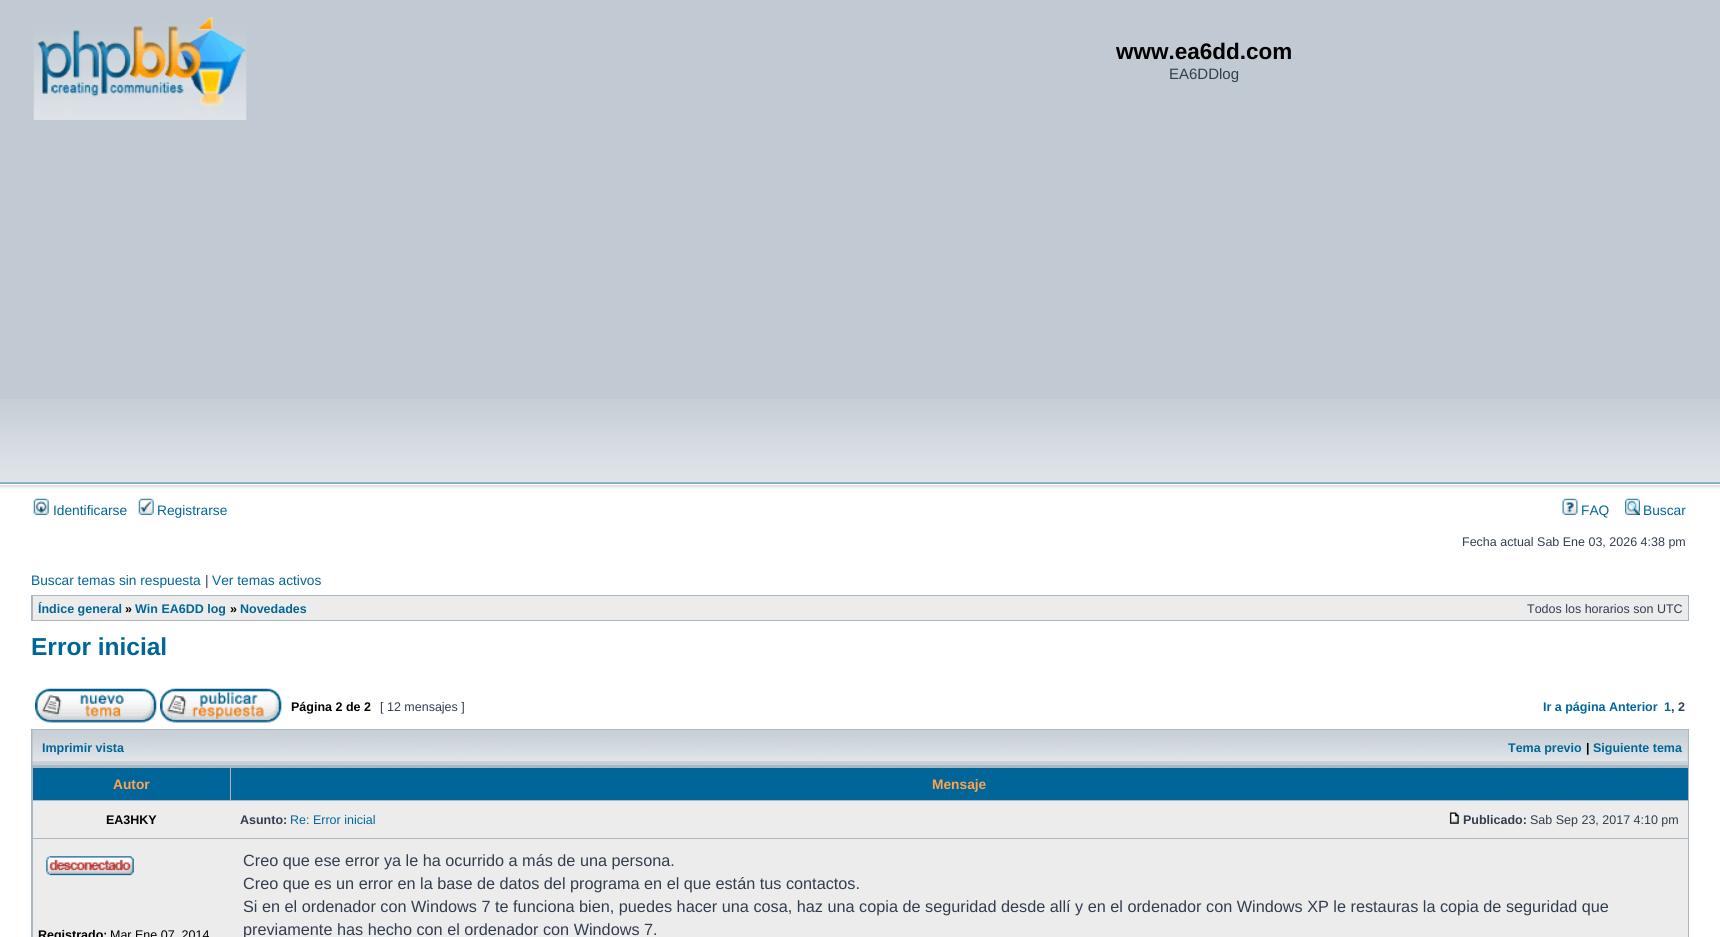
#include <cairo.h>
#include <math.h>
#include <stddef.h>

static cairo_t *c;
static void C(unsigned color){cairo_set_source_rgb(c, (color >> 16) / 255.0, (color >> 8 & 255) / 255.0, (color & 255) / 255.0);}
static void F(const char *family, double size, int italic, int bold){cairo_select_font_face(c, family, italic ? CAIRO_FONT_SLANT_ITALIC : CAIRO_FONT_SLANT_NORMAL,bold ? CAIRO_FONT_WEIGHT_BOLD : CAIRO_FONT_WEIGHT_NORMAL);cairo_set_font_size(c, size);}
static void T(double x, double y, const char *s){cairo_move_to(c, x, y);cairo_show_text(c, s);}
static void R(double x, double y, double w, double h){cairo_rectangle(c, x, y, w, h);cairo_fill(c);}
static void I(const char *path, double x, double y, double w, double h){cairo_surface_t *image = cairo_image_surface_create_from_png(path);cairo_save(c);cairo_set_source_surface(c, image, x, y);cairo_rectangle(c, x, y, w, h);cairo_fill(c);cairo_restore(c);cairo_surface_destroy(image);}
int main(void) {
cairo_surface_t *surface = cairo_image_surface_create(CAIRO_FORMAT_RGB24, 1720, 937);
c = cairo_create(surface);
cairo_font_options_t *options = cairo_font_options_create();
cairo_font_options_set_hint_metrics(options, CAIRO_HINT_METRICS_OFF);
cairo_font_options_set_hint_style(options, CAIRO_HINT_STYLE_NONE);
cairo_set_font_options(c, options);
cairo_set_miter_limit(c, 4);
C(0xffffff);
cairo_paint(c);
C(0xc1cad2);
R(0,0,1720,399);
I("1.png",0,399,1720,97);
I("2.png",33,17,214,103);
F("Liberation Sans",22.5,0,1);
C(0x000000);
T(1116,59,"www.ea6dd.com");
F("Liberation Sans",15,0,0);
C(0x323d4f);
T(1169,79,"EA6DDlog");
I("3.png",33,498,16,17);
F("Liberation Sans",13.75,0,0);
C(0x006597);
T(53,515,"Identificarse");
I("4.png",138,498,16,17);
T(157,515,"Registrarse");
I("5.png",1562,498,16,17);
T(1581,515,"FAQ");
I("6.png",1625,498,15,17);
T(1643,515,"Buscar");
F("Liberation Sans",12.5,0,0);
C(0x323d4f);
T(1462,546,"Fecha actual Sab Ene 03, 2026 4:38 pm");
F("Liberation Sans",13.75,0,0);
C(0x006597);
T(31,585,"Buscar temas sin respuesta");
C(0x323d4f);
T(205,585,"|");
C(0x006597);
T(212,585,"Ver temas activos");
C(0xa9b8c2);
R(31,595,1658,26);
C(0xececec);
R(33,596,1655,24);
F("Liberation Sans",12.5,0,1);
C(0x006597);
T(38,613,"Índice general");
C(0x000000);
T(125,613,"»");
C(0x006597);
T(135,613,"Win EA6DD log");
C(0x000000);
T(230,613,"»");
C(0x006597);
T(240,613,"Novedades");
F("Liberation Sans",12.5,0,0);
C(0x323d4f);
T(1527,613,"Todos los horarios son UTC");
F("Liberation Sans",24.5,0,1);
C(0x006597);
T(31,655,"Error inicial");
I("7.png",35,688,122,35);
I("8.png",160,688,122,35);
F("Liberation Sans",12.5,0,1);
C(0x000000);
T(291,711,"Página 2 de 2");
F("Liberation Sans",12.5,0,0);
C(0x323d4f);
T(380,711,"[ 12 mensajes ]");
F("Liberation Sans",12.5,0,1);
C(0x006597);
T(1543,711,"Ir a página Anterior");
T(1664,711,"1");
C(0x323d4f);
T(1671,711,", 2");
C(0xa9b8c2);
R(31,729,1658,208);
C(0xc7d0d7);
R(1687,730,1,35);
I("9.png",32,730,1656,35);
C(0x006597);
T(42,752,"Imprimir vista");
T(1508,752,"Tema previo");
C(0x000000);
T(1586,752,"|");
C(0x006597);
T(1593,752,"Siguiente tema");
C(0x006699);
R(33,768,197,32);
F("Liberation Sans",13.75,0,1);
C(0xffa34f);
T(113,789,"Autor");
C(0x006699);
R(231,768,1457,32);
C(0xffa34f);
T(932,789,"Mensaje");
C(0xececec);
R(33,801,1655,37);
F("Liberation Sans",12.5,0,1);
C(0x000000);
T(106,824,"EA3HKY");
C(0x323d4f);
T(240,824,"Asunto:");
F("Liberation Sans",12.5,0,0);
C(0x006597);
T(290,824,"Re: Error inicial");
I("10.png",1449,812,10,12);
F("Liberation Sans",12.5,0,1);
C(0x323d4f);
T(1463,824,"Publicado:");
F("Liberation Sans",12.5,0,0);
T(1530,824,"Sab Sep 23, 2017 4:10 pm");
C(0xececec);
R(33,839,1655,98);
I("11.png",46,856,88,20);
F("Liberation Sans",12.5,0,1);
C(0x000000);
T(38,939,"Registrado:");
F("Liberation Sans",12.5,0,0);
T(110,939,"Mar Ene 07, 2014");
F("Liberation Sans",16.25,0,0);
C(0x323d4f);
T(243,866,"Creo que ese error ya le ha ocurrido a más de una persona.");
T(243,889,"Creo que es un error en la base de datos del programa en el que están tus contactos.");
T(243,912,"Si en el ordenador con Windows 7 te funciona bien, puedes hacer una cosa, haz una copia de seguridad desde allí y en el ordenador con Windows XP le restauras la copia de seguridad que");
T(243,935,"previamente has hecho con el ordenador con Windows 7.");
cairo_surface_write_to_png(surface, "o.png");
cairo_font_options_destroy(options);
cairo_destroy(c);
cairo_surface_destroy(surface);
return 0;
}
